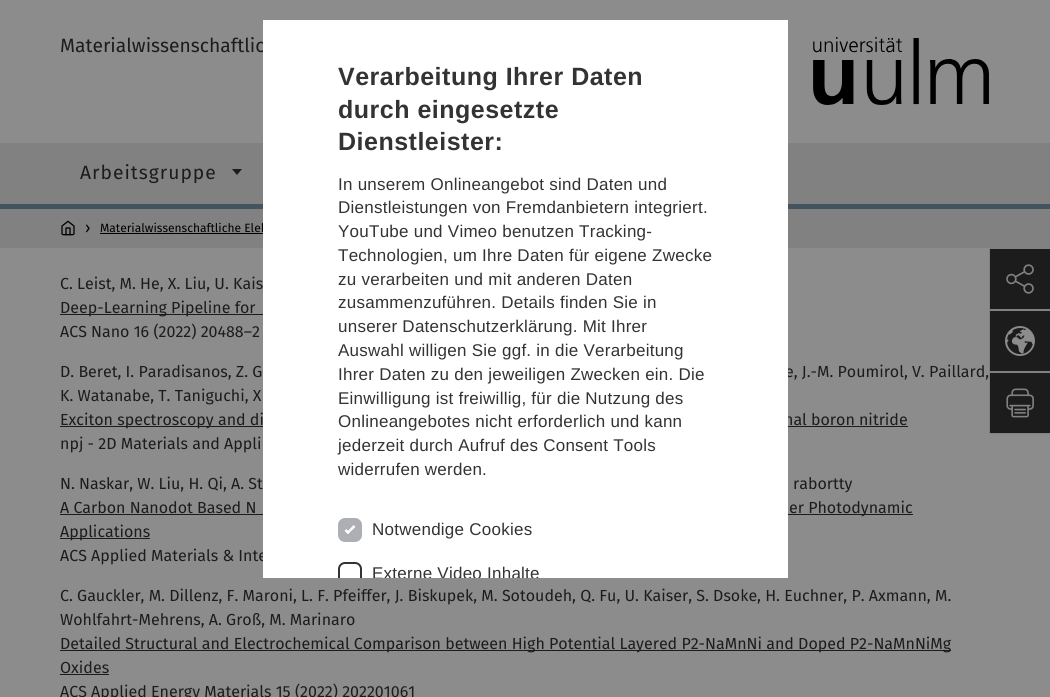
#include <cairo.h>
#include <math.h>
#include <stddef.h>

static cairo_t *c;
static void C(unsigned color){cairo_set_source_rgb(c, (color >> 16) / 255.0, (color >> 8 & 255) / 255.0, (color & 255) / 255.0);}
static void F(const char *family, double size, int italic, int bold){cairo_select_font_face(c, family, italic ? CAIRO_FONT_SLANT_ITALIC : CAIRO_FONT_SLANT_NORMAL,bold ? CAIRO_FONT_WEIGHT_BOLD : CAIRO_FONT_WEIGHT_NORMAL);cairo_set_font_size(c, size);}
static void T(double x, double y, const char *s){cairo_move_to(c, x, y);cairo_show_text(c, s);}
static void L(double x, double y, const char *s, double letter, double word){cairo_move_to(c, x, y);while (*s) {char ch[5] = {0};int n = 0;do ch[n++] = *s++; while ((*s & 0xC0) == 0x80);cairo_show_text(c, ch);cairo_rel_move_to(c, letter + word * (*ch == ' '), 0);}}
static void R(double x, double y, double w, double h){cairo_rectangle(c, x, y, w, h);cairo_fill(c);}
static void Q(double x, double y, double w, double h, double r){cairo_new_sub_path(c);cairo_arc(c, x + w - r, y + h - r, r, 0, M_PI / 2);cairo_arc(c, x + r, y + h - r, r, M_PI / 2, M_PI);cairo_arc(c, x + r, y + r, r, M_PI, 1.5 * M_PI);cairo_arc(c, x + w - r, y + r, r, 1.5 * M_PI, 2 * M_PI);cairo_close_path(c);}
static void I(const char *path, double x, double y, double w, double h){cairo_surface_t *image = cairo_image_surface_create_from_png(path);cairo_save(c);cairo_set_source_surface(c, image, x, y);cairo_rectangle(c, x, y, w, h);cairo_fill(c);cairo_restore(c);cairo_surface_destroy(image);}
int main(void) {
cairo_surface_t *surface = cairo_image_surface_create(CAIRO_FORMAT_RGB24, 1050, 697);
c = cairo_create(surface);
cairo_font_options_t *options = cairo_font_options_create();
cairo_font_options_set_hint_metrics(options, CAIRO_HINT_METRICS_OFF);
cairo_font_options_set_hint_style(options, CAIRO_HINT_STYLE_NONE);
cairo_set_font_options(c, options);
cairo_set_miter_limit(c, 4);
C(0x8c8c8c);
cairo_paint(c);
F("Fira Sans",19.25,0,0);
C(0x1c1c1c);
T(60,52,"Materialwissenschaftlic");
I("1.png",813,37,176,68);
C(0x818181);
R(0,143,1050,105);
C(0x43545f);
R(0,204,1050,5);
C(0x1c1c1c);
L(80,179,"Arbeitsgruppe",1,0);
cairo_new_path(c);
cairo_move_to(c,242,169);
cairo_line_to(c,237,175);
cairo_line_to(c,232,169);
cairo_close_path(c);
cairo_fill(c);
I("2.png",61,220,14,16);
F("Fira Sans",16,0,0);
C(0x000000);
T(85,233,"›");
F("Fira Sans",12,0,0);
T(100,232,"Materialwissenschaftliche Elek");
R(100,233,163,1);
C(0x1c1c1c);
R(990,249,60,60);
C(0x818181);
R(989,248,61,1);
R(989,309,61,2);
R(989,371,61,2);
R(989,248,1,124);
I("3.png",1006,264,28,30);
C(0x1c1c1c);
R(990,311,60,60);
I("4.png",1005,326,30,30);
R(990,373,60,60);
C(0x818181);
R(989,433,61,1);
R(989,372,1,62);
I("5.png",1006,388,28,30);
F("Fira Sans",16,0,0);
C(0x1c1c1c);
T(785,377,"e, J.-M. Poumirol, V. Paillard,");
R(60,426,848,1);
T(784,425,"nal boron nitride");
R(60,514,853,1);
T(60,561,"ACS Applied Materials & Inte");
C(0xffffff);
R(263,20,525,558);
F("Liberation Sans",25,0,1);
C(0x333333);
L(338,85,"Verarbeitung Ihrer Daten",.5,0);
L(338,118,"durch eingesetzte",.5,0);
L(338,150,"Dienstleister:",.5,0);
F("Liberation Sans",17,0,0);
L(338,190,"In unserem Onlineangebot sind Daten und",.25,0);
L(338,213,"Dienstleistungen von Fremdanbietern integriert.",.25,0);
L(338,237,"YouTube und Vimeo benutzen Tracking-",.25,0);
L(338,261,"Technologien, um Ihre Daten für eigene Zwecke",.25,0);
L(338,285,"zu verarbeiten und mit anderen Daten",.25,0);
L(338,308,"zusammenzuführen. Details finden Sie in",.25,0);
L(338,332,"unserer Datenschutzerklärung. Mit Ihrer",.25,0);
L(338,356,"Auswahl willigen Sie ggf. in die Verarbeitung",.25,0);
L(338,380,"Ihrer Daten zu den jeweiligen Zwecken ein. Die",.25,0);
L(338,404,"Einwilligung ist freiwillig, für die Nutzung des",.25,0);
L(338,427,"Onlineangebotes nicht erforderlich und kann",.25,0);
L(338,451,"jederzeit durch Aufruf des Consent Tools",.25,0);
L(338,475,"widerrufen werden.",.25,0);
C(0xadafb5);
Q(339,519,22,22,6);
cairo_fill_preserve(c);
cairo_stroke(c);
C(0x333333);
L(372,535,"Notwendige Cookies",.25,0);
C(0xffffff);
cairo_new_path(c);
cairo_move_to(c,346.5,532.5);
cairo_line_to(c,353.5,525);
cairo_line_to(c,355.5,527);
cairo_line_to(c,348,534);
cairo_close_path(c);
cairo_fill(c);
cairo_new_path(c);
cairo_move_to(c,344.5,531);
cairo_line_to(c,346.5,529);
cairo_line_to(c,349.5,532.5);
cairo_line_to(c,348,534);
cairo_close_path(c);
cairo_fill(c);
cairo_save(c);
cairo_rectangle(c,263,20,525,558);
cairo_clip(c);
Q(339,563,22,22,6);
C(0x333333);
cairo_stroke(c);
L(372,579,"Externe Video Inhalte",.25,0);
cairo_restore(c);
F("Fira Sans",16,0,0);
C(0x1c1c1c);
T(60,289,"C. Leist, M. He, X. Liu, U. Kais");
R(60,314,203,1);
T(60,313,"Deep-Learning Pipeline for");
T(60,337,"ACS Nano 16 (2022) 20488–2");
T(60,377,"D. Beret, I. Paradisanos, Z. G");
T(60,401,"K. Watanabe, T. Taniguchi, X");
T(60,425,"Exciton spectroscopy and di");
T(60,449,"npj - 2D Materials and Appli");
T(60,489,"N. Naskar, W. Liu, H. Qi, A. St");
T(793,489,"rabortty");
T(60,513,"A Carbon Nanodot Based N");
T(789,513,"er Photodynamic");
R(60,538,90,1);
T(60,537,"Applications");
T(60,601,"C. Gauckler, M. Dillenz, F. Maroni, L. F. Pfeiffer, J. Biskupek, M. Sotoudeh, Q. Fu, U. Kaiser, S. Dsoke, H. Euchner, P. Axmann, M.");
T(60,625,"Wohlfahrt-Mehrens, A. Groß, M. Marinaro");
R(60,650,891,1);
T(60,649,"Detailed Structural and Electrochemical Comparison between High Potential Layered P2-NaMnNi and Doped P2-NaMnNiMg");
T(60,673,"Oxides");
R(60,674,49,1);
T(60,697,"ACS Applied Energy Materials 15 (2022) 202201061");
cairo_surface_write_to_png(surface, "o.png");
cairo_font_options_destroy(options);
cairo_destroy(c);
cairo_surface_destroy(surface);
return 0;
}
